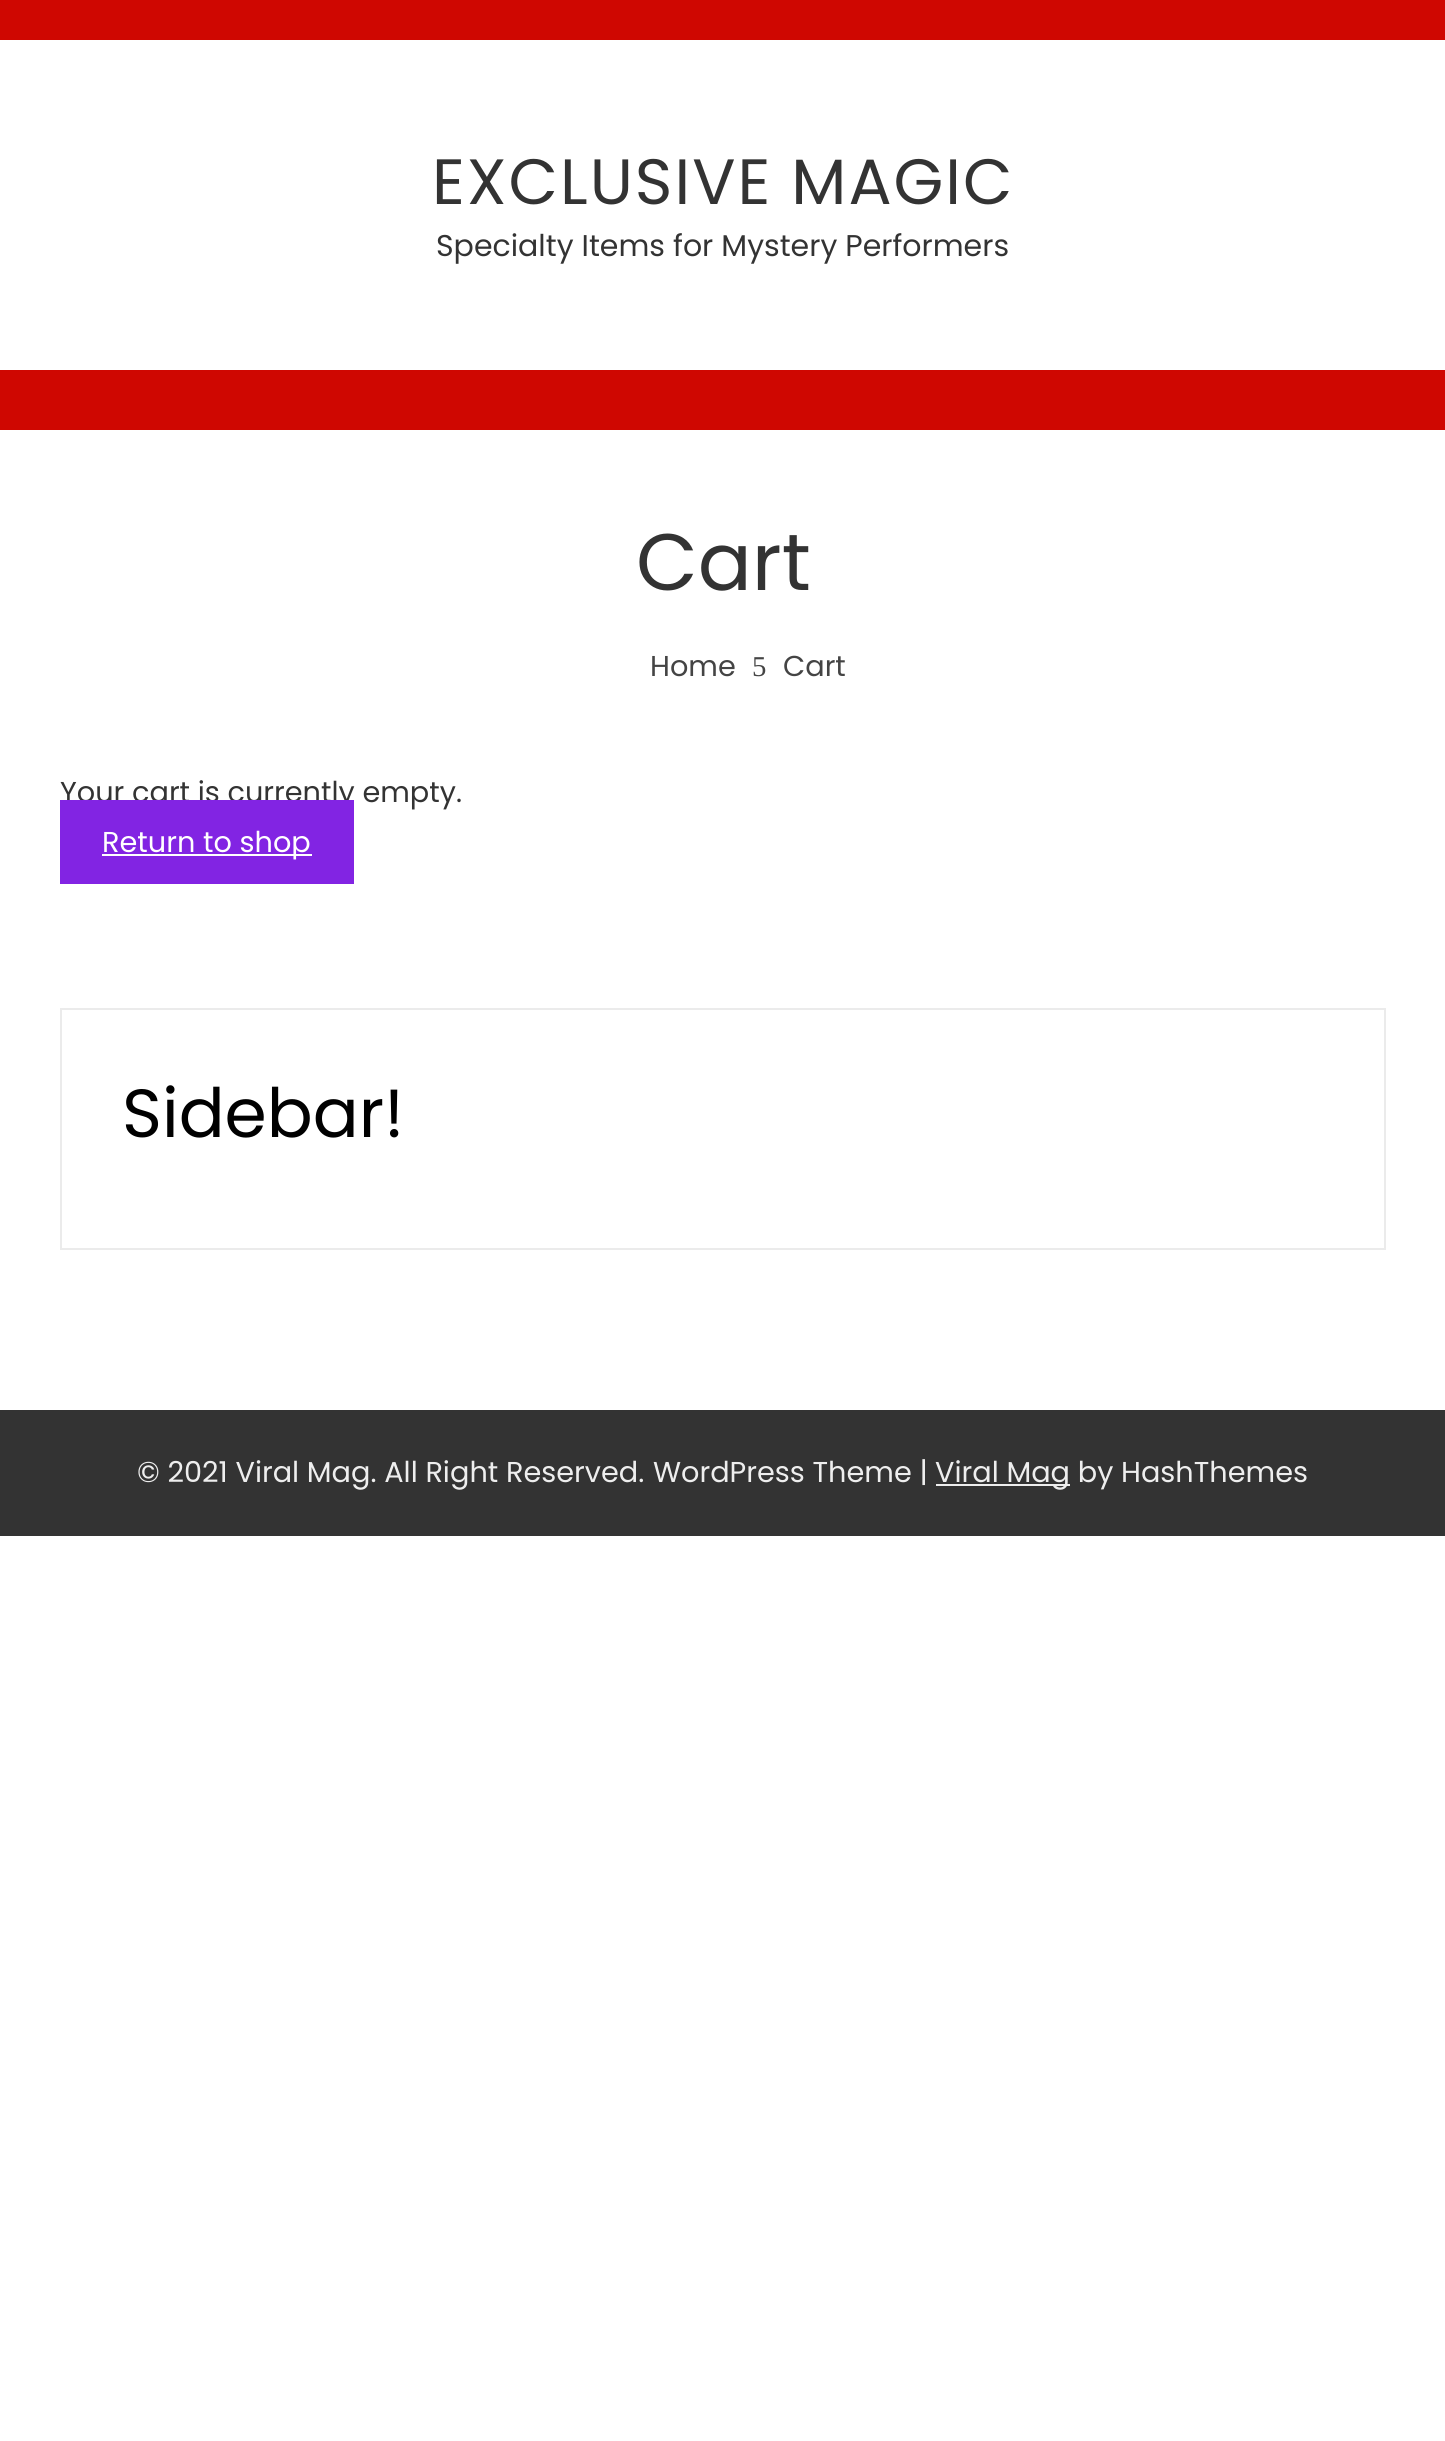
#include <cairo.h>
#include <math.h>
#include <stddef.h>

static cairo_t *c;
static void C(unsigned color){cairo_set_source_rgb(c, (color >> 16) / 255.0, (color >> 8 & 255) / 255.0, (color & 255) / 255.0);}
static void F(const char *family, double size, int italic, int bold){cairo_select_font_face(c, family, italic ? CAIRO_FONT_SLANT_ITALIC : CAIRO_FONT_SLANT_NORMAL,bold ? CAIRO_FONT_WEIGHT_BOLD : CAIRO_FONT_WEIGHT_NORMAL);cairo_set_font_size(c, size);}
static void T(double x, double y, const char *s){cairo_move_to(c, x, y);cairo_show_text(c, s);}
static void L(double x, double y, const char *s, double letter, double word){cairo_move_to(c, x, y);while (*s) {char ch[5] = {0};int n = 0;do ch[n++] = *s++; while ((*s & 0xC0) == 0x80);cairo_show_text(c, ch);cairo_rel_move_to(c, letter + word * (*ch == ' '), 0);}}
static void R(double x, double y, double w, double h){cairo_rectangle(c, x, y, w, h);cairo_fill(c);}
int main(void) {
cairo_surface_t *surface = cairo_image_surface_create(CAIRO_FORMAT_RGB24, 1445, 2441);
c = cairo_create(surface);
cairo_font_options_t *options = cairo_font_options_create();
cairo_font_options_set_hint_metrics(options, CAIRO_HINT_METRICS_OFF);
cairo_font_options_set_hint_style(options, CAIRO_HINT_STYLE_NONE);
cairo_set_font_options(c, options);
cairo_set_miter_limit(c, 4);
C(0xffffff);
cairo_paint(c);
C(0xcf0701);
R(0,0,1445,40);
F("Poppins",64,0,0);
C(0x333333);
L(432,204,"EXCLUSIVE MAGIC",2,0);
F("Poppins",30,0,0);
T(436,256,"Specialty Items for Mystery Performers");
C(0xcf0701);
R(0,370,1445,60);
F("Poppins",80,0,0);
C(0x333333);
T(636,590,"Cart");
F("Poppins",28.75,0,0);
C(0x444444);
T(650,676,"Home");
F("Liberation Serif",28.75,0,0);
T(752,676,"5");
F("Poppins",28.75,0,0);
T(783,676,"Cart");
C(0x333333);
T(60,802,"Your cart is currently empty.");
C(0x8224e3);
R(60,800,294,84);
C(0xffffff);
R(102,854,210,2);
T(102,852,"Return to shop");
cairo_rectangle(c,61,1009,1324,240);
C(0xebebeb);
cairo_stroke(c);
F("Poppins",68,0,0);
C(0x000000);
T(122,1137,"Sidebar!");
C(0x333333);
R(0,1410,1445,126);
F("Poppins",28.75,0,0);
C(0xeeeeee);
T(137,1482,"© 2021 Viral Mag. All Right Reserved.");
T(653,1482,"WordPress Theme |");
R(936,1484,134,2);
T(935,1482,"Viral Mag by HashThemes");
cairo_surface_write_to_png(surface, "o.png");
cairo_font_options_destroy(options);
cairo_destroy(c);
cairo_surface_destroy(surface);
return 0;
}
